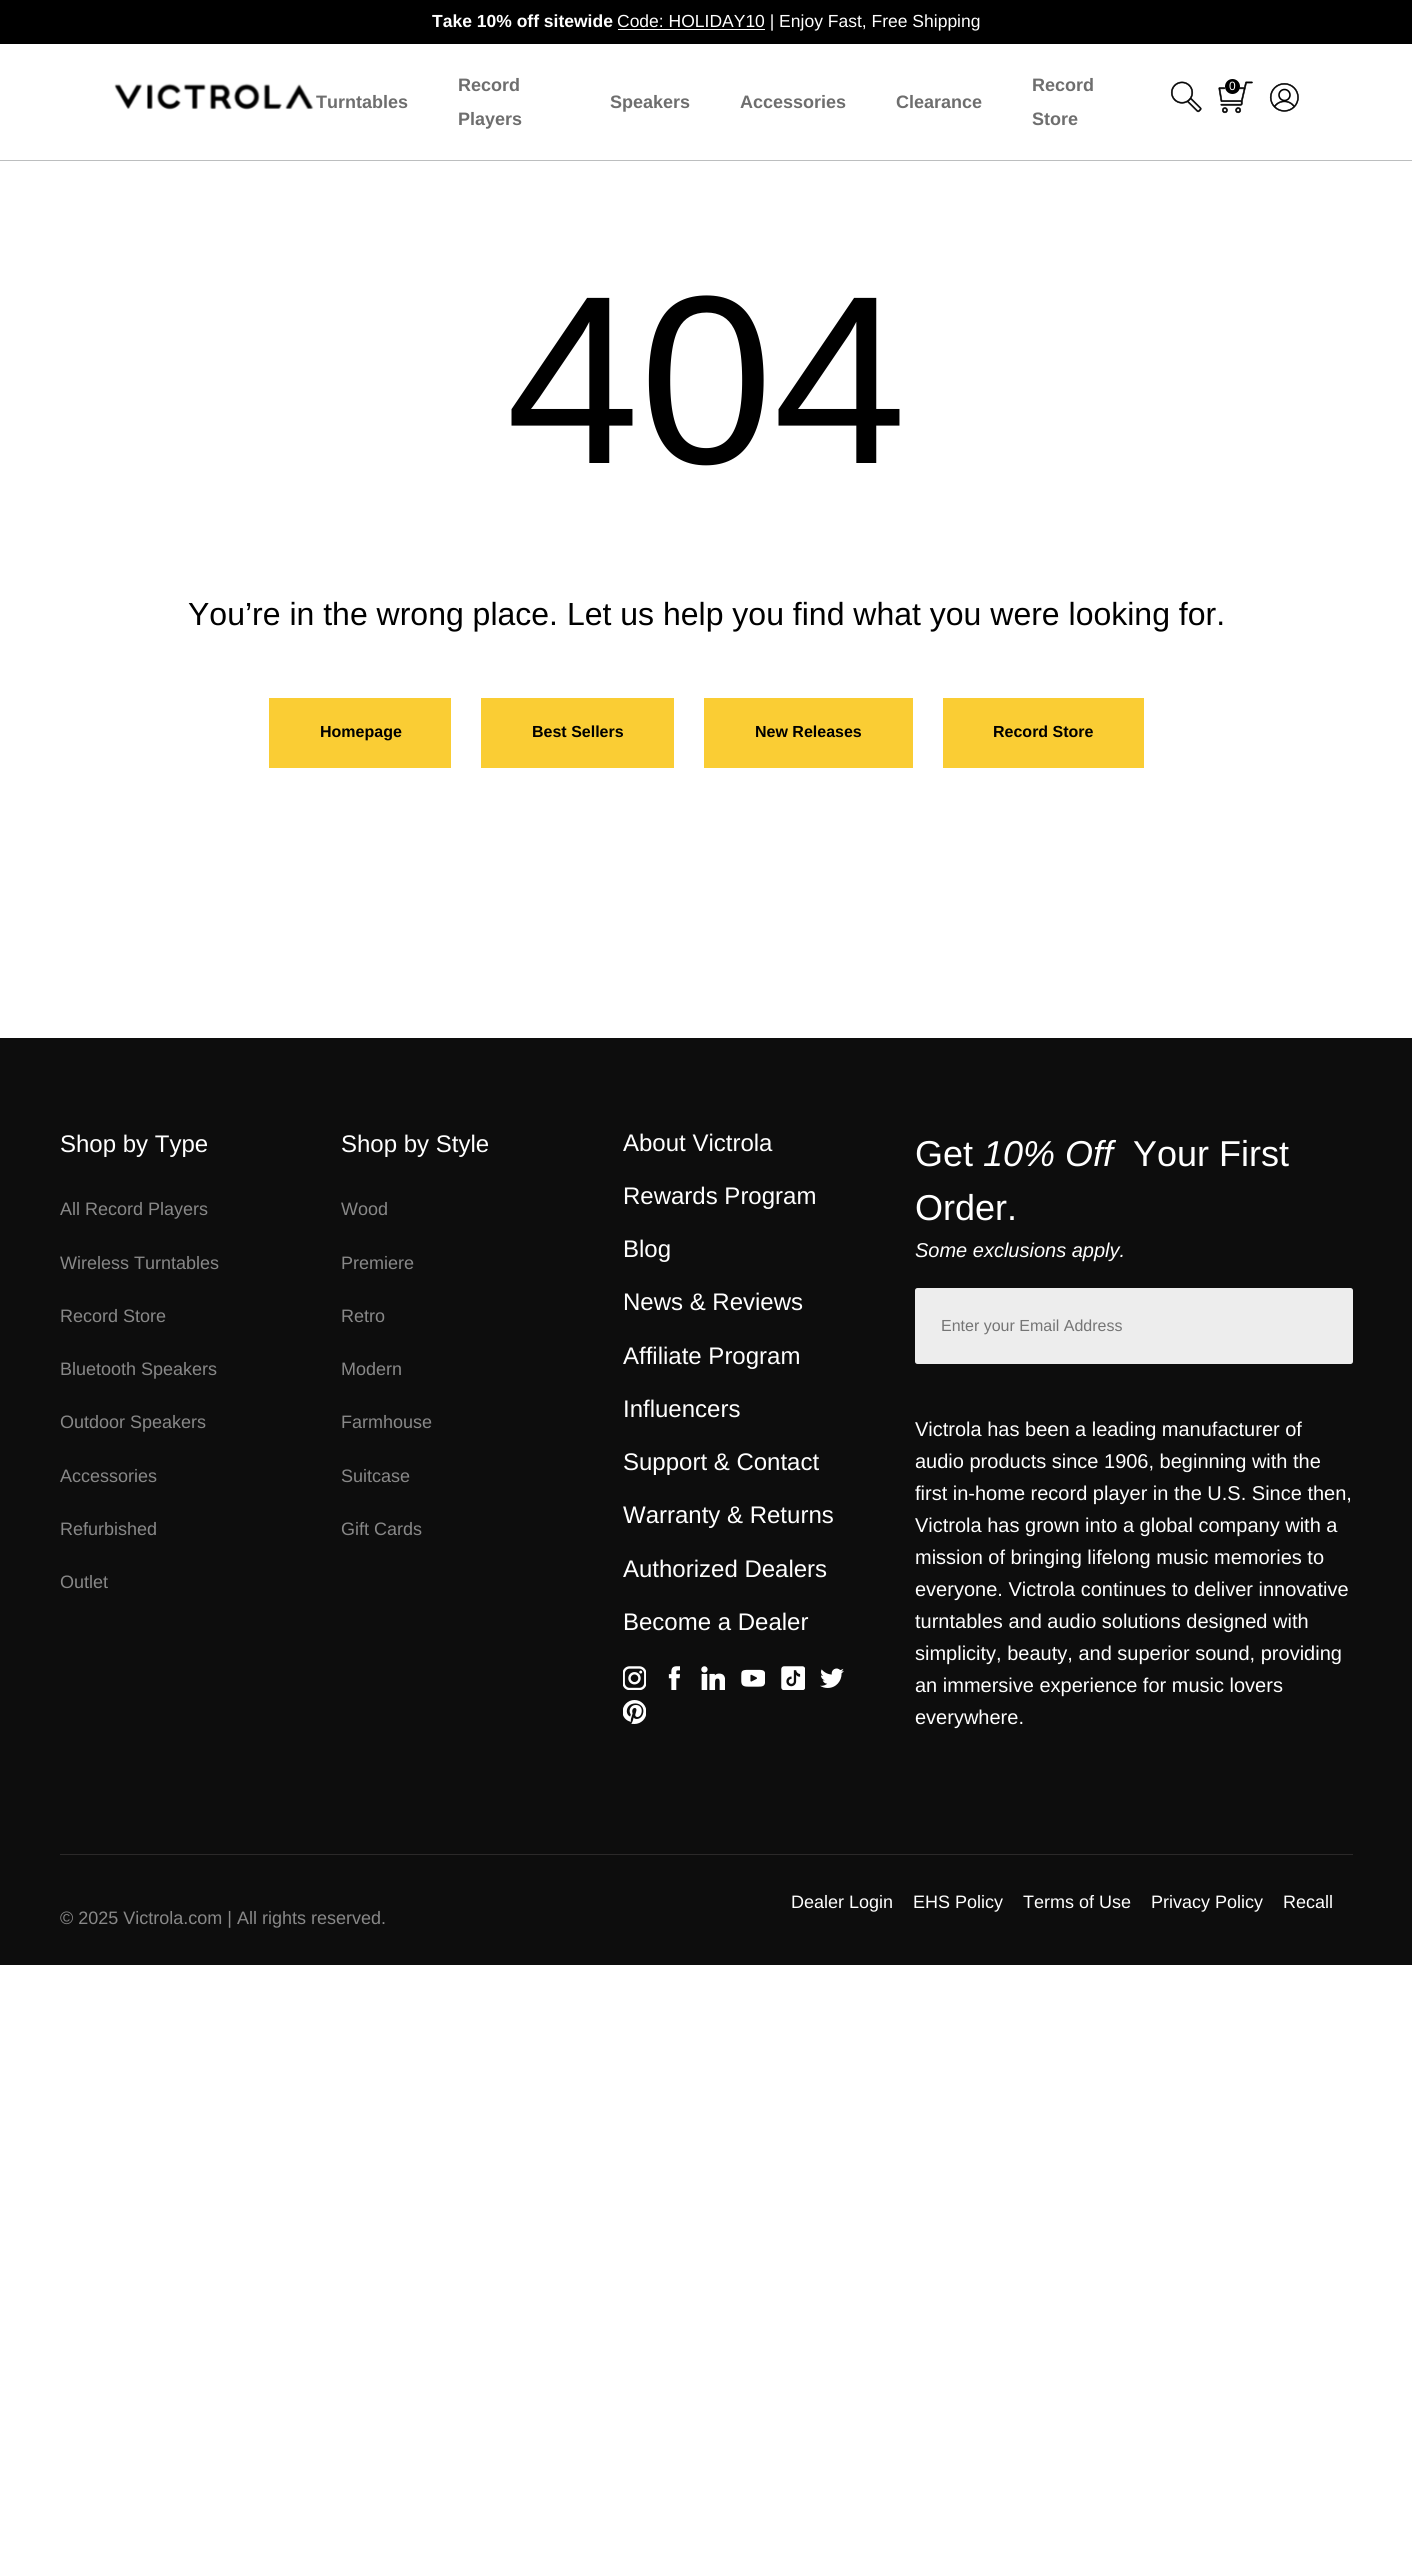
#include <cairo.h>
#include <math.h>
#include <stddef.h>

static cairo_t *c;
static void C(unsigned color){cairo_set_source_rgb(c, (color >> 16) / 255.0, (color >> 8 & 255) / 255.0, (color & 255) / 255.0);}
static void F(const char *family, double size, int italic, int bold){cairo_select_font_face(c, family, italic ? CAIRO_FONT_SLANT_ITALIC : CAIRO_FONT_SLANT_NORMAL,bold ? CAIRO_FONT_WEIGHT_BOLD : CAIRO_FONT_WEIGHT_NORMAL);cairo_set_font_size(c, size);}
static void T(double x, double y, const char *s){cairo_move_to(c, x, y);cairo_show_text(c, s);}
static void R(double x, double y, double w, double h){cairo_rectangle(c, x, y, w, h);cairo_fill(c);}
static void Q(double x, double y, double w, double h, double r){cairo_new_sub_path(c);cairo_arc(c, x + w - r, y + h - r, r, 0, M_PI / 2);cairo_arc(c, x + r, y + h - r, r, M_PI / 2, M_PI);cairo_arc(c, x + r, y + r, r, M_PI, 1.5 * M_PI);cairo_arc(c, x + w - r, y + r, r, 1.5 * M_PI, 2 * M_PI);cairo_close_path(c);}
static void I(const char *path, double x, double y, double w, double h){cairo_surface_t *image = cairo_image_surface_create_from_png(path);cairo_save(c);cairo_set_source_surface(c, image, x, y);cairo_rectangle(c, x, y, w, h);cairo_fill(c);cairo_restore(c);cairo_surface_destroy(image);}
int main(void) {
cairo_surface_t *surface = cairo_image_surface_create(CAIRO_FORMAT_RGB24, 1412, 2554);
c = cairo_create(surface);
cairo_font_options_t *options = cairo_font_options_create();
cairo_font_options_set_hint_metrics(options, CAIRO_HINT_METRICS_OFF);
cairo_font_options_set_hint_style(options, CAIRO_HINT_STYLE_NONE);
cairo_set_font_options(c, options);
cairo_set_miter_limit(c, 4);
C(0xffffff);
cairo_paint(c);
C(0x000000);
R(0,0,1412,44);
F("Liberation Sans",17.5,0,1);
C(0xffffff);
T(432,27,"Take 10% off sitewide");
R(618,29,147,1);
F("Liberation Sans",17.5,0,0);
T(617,27,"Code: HOLIDAY10 | Enjoy Fast, Free Shipping");
C(0xbcbebf);
R(0,160,1412,1);
I("1.png",114,83,200,27);
F("Liberation Sans",18,0,1);
C(0x6e6e6e);
T(316,108,"Turntables");
T(458,91,"Record");
T(458,125,"Players");
T(610,108,"Speakers");
T(740,108,"Accessories");
T(896,108,"Clearance");
T(1032,91,"Record");
T(1032,125,"Store");
I("2.png",1170,81,32,32);
I("3.png",1218,81,35,33);
C(0x000000);
cairo_arc(c,1232.5,86.5,7.5,0,2 * M_PI);
cairo_fill(c);
F("Liberation Sans",12,0,0);
C(0xffffff);
T(1229,90,"0");
I("4.png",1269,83,30,29);
F("Liberation Sans",240,0,0);
C(0x000000);
T(506,463,"404");
F("Liberation Sans",32,0,0);
T(188,625,"You’re in the wrong place. Let us help you find what you were looking for.");
C(0xfacd34);
R(269,698,182,70);
F("Liberation Sans",16,0,1);
C(0x000000);
T(320,737,"Homepage");
C(0xfacd34);
R(481,698,193,70);
C(0x000000);
T(532,737,"Best Sellers");
C(0xfacd34);
R(704,698,209,70);
C(0x000000);
T(755,737,"New Releases");
C(0xfacd34);
R(943,698,201,70);
C(0x000000);
T(993,737,"Record Store");
C(0x0d0d0d);
R(0,1038,1412,927);
F("Liberation Sans",24,0,0);
C(0xffffff);
T(60,1152,"Shop by Type");
F("Liberation Sans",18,0,0);
C(0x888888);
T(60,1215,"All Record Players");
T(60,1269,"Wireless Turntables");
T(60,1322,"Record Store");
T(60,1375,"Bluetooth Speakers");
T(60,1428,"Outdoor Speakers");
T(60,1482,"Accessories");
T(60,1535,"Refurbished");
T(60,1588,"Outlet");
F("Liberation Sans",24,0,0);
C(0xffffff);
T(341,1152,"Shop by Style");
F("Liberation Sans",18,0,0);
C(0x888888);
T(341,1215,"Wood");
T(341,1269,"Premiere");
T(341,1322,"Retro");
T(341,1375,"Modern");
T(341,1428,"Farmhouse");
T(341,1482,"Suitcase");
T(341,1535,"Gift Cards");
F("Liberation Sans",24,0,0);
C(0xffffff);
T(623,1151,"About Victrola");
T(623,1204,"Rewards Program");
T(623,1257,"Blog");
T(623,1310,"News & Reviews");
T(623,1364,"Affiliate Program");
T(623,1417,"Influencers");
T(623,1470,"Support & Contact");
T(623,1523,"Warranty & Returns");
T(623,1577,"Authorized Dealers");
T(623,1630,"Become a Dealer");
I("5.png",623,1666,23,24);
I("6.png",668,1666,12,24);
I("7.png",701,1666,24,24);
I("8.png",741,1669,24,18);
I("9.png",781,1666,24,24);
I("10.png",820,1668,24,20);
I("11.png",623,1700,23,24);
F("Liberation Sans",36,0,0);
T(915,1166,"Get");
F("Liberation Sans",36,1,0);
T(983,1166,"10% Off");
F("Liberation Sans",36,0,0);
T(1133,1166,"Your First");
T(915,1220,"Order.");
F("Liberation Sans",20,1,0);
T(915,1257,"Some exclusions apply.");
C(0xededed);
Q(916.5,1289.5,435,73,1);
cairo_fill_preserve(c);
cairo_set_line_width(c,3);
cairo_stroke(c);
F("Liberation Sans",16,0,0);
C(0x757575);
T(941,1331,"Enter your Email Address");
F("Liberation Sans",20,0,0);
C(0xffffff);
T(915,1436,"Victrola has been a leading manufacturer of");
T(915,1468,"audio products since 1906, beginning with the");
T(915,1500,"first in-home record player in the U.S. Since then,");
T(915,1532,"Victrola has grown into a global company with a");
T(915,1564,"mission of bringing lifelong music memories to");
T(915,1596,"everyone. Victrola continues to deliver innovative");
T(915,1628,"turntables and audio solutions designed with");
T(915,1660,"simplicity, beauty, and superior sound, providing");
T(915,1692,"an immersive experience for music lovers");
T(915,1724,"everywhere.");
C(0x2b2929);
R(60,1854,1293,1);
F("Liberation Sans",18,0,0);
C(0xffffff);
T(791,1908,"Dealer Login");
T(913,1908,"EHS Policy");
T(1023,1908,"Terms of Use");
T(1151,1908,"Privacy Policy");
T(1283,1908,"Recall");
C(0x888888);
T(60,1924,"© 2025 Victrola.com | All rights reserved.");
cairo_surface_write_to_png(surface, "o.png");
cairo_font_options_destroy(options);
cairo_destroy(c);
cairo_surface_destroy(surface);
return 0;
}
